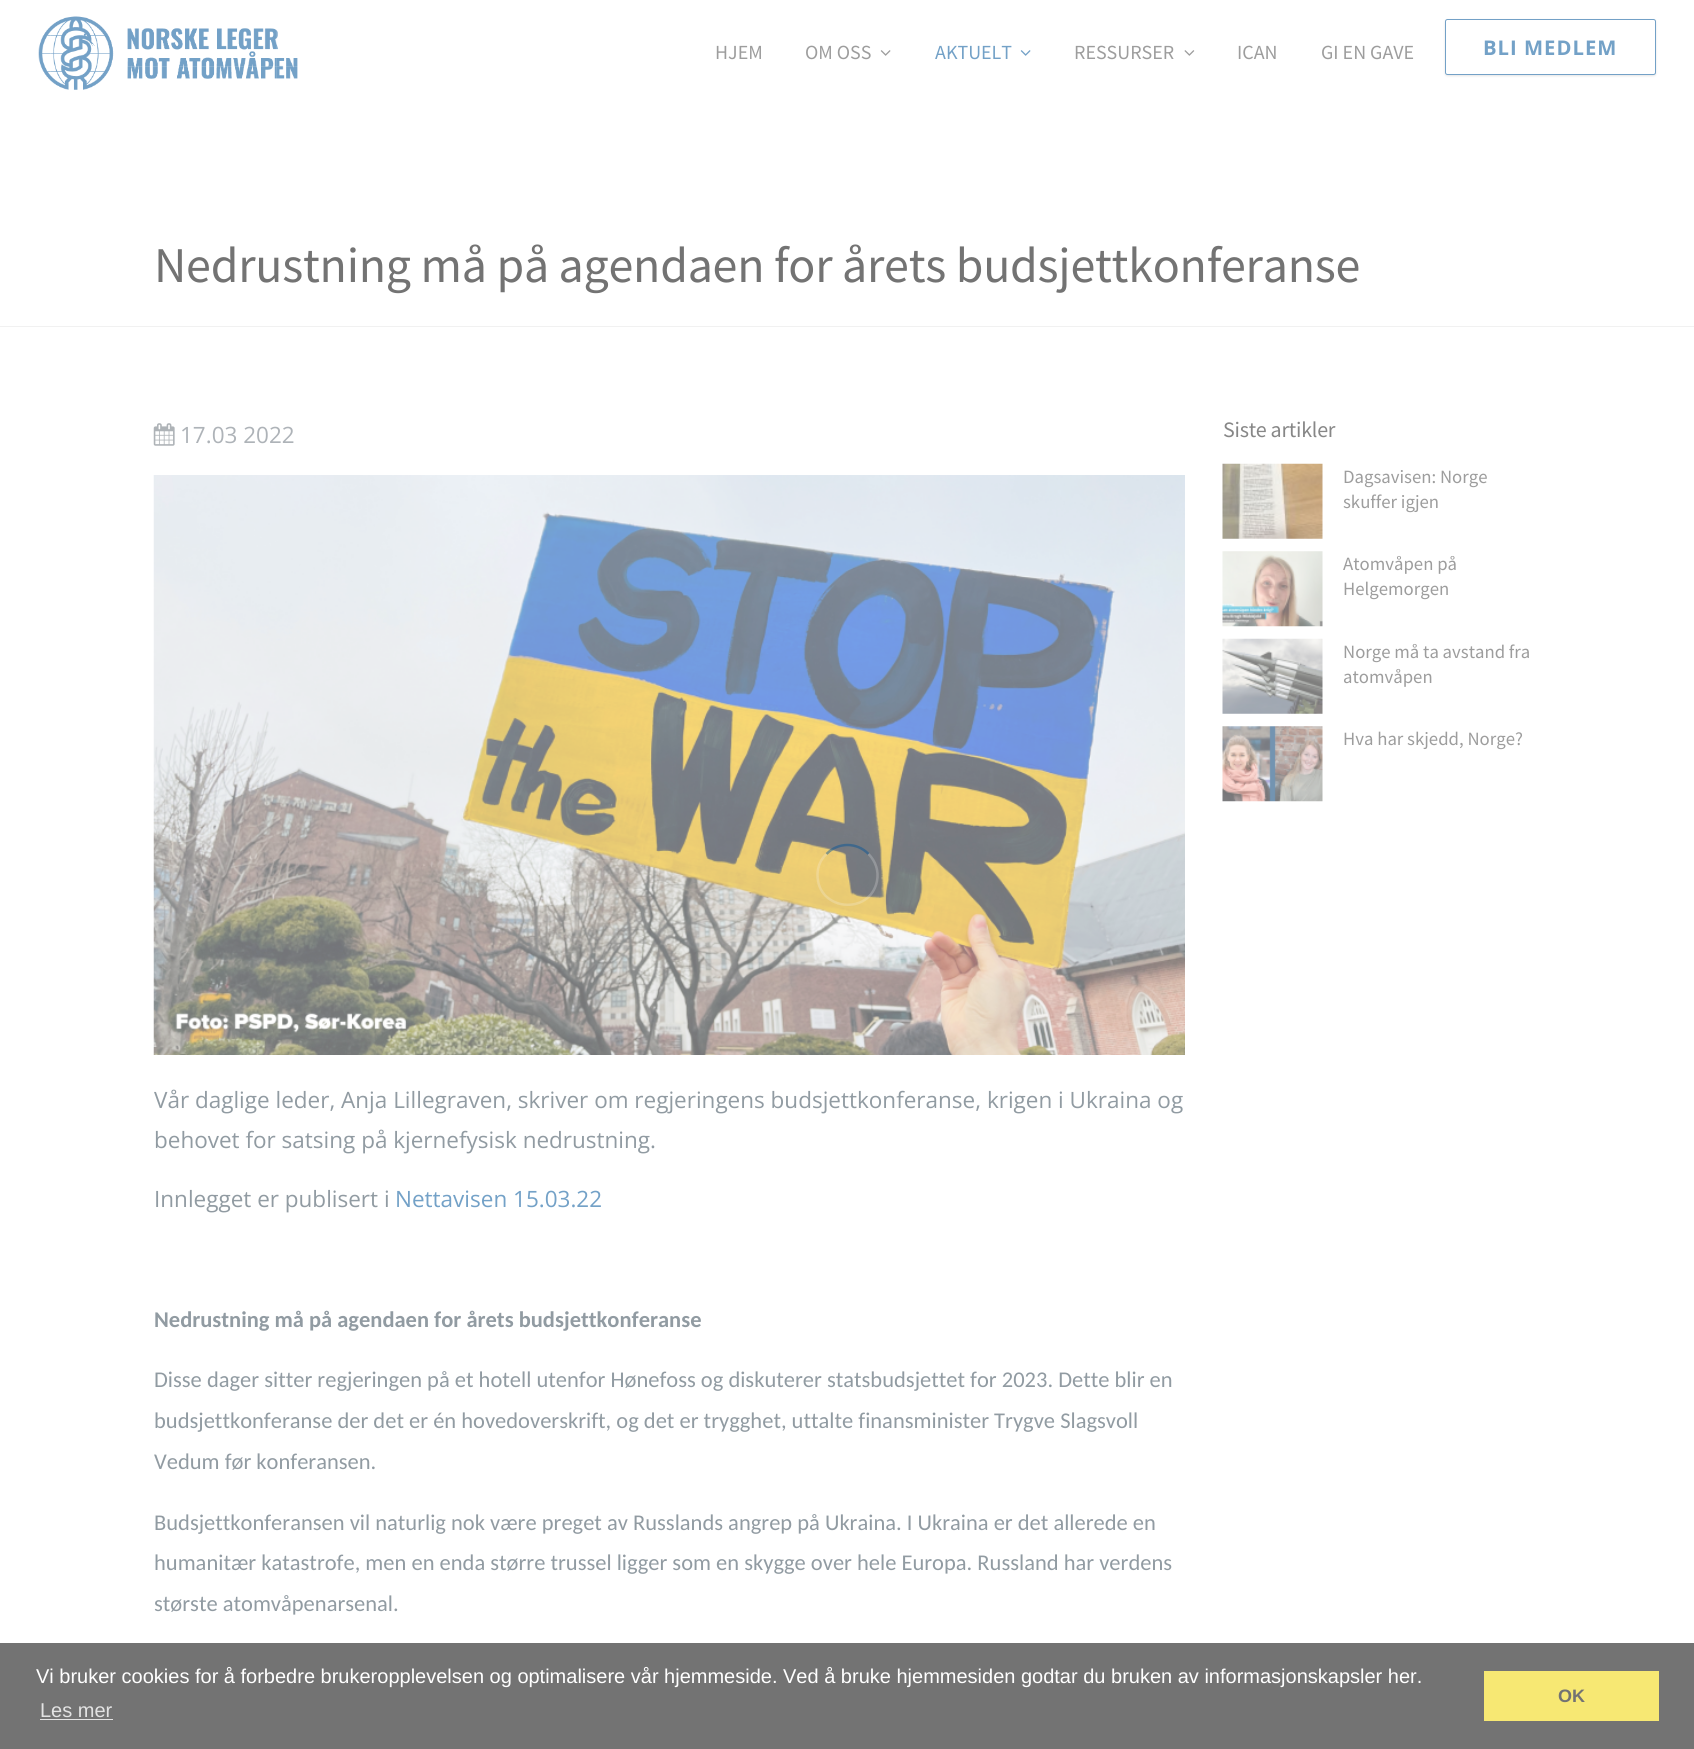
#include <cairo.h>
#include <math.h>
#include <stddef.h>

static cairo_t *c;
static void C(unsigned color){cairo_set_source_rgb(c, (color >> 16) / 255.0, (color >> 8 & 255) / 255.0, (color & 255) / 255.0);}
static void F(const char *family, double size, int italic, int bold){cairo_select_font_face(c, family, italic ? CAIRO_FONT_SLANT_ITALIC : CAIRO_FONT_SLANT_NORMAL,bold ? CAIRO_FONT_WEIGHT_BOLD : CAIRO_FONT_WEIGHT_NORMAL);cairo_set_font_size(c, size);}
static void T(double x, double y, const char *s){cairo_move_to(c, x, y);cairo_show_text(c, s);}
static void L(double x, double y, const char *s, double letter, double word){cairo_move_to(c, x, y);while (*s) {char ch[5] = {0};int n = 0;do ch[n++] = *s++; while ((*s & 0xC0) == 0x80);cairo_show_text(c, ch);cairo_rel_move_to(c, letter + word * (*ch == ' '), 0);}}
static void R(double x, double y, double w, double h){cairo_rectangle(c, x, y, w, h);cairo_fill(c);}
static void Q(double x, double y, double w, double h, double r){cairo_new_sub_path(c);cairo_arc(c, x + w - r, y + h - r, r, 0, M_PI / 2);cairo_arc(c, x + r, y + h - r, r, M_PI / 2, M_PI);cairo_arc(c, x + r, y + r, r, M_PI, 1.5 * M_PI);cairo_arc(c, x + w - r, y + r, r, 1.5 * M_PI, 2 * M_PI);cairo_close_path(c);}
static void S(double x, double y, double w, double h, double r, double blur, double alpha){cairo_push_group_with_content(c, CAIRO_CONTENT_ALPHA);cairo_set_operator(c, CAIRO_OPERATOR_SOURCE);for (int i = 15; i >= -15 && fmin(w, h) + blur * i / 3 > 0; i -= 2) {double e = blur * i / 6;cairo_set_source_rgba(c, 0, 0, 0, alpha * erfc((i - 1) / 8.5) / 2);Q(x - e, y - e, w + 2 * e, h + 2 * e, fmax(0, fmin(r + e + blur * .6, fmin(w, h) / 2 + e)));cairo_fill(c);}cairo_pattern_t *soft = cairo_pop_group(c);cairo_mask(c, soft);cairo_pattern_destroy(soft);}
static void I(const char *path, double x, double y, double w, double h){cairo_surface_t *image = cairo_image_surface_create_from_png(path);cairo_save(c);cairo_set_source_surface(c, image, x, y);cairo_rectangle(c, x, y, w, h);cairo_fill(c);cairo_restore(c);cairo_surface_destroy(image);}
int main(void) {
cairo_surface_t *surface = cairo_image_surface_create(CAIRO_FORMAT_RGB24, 1694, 1749);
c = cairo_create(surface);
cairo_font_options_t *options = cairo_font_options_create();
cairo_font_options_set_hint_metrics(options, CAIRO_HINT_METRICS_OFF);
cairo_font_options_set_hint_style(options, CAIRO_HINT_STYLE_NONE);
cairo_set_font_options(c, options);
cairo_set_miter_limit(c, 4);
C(0xffffff);
cairo_paint(c);
I("1.png",38,16,260,74);
F("Source Sans Pro",20,0,0);
C(0x9d9d9d);
T(715,59,"HJEM");
T(805,59,"OM OSS");
I("2.png",880,50,11,6);
C(0x73a1c7);
T(935,59,"AKTUELT");
I("3.png",1020,50,11,6);
C(0x9d9d9d);
T(1074,59,"RESSURSER");
I("4.png",1184,50,11,6);
T(1237,59,"ICAN");
T(1321,59,"GI EN GAVE");
C(0x737373);
S(1445,20,211,56,2.5,1,.18);
C(0xffffff);
Q(1445.5,19.5,210,55,2);
cairo_fill_preserve(c);
C(0x73a1c7);
cairo_set_line_width(c,1);
cairo_stroke(c);
F("Open Sans",20.25,0,1);
L(1483,55,"BLI MEDLEM",1,0);
F("Source Sans Pro",50,0,0);
C(0x737373);
L(154,282,"Nedrustning må på agendaen for årets budsjettkonferanse",-.25,0);
C(0xf1f1f1);
R(0,326,1694,1);
I("5.png",153,423,22,23);
F("Open Sans",22.5,0,0);
C(0xaeb3b8);
T(180,443,"17.03 2022");
I("6.png",153,475,1032,580);
C(0x919ba2);
T(154,1108,"Vår daglige leder, Anja Lillegraven, skriver om regjeringens budsjettkonferanse, krigen i Ukraina og");
T(154,1148,"behovet for satsing på kjernefysisk nedrustning.");
T(154,1207,"Innlegget er publisert i");
C(0x73a1c7);
T(395,1207,"Nettavisen 15.03.22");
F("Carlito",22.5,0,1);
C(0x919ba2);
T(154,1327,"Nedrustning må på agendaen for årets budsjettkonferanse");
F("Carlito",22.5,0,0);
T(154,1387,"Disse dager sitter regjeringen på et hotell utenfor Hønefoss og diskuterer statsbudsjettet for 2023. Dette blir en");
T(154,1428,"budsjettkonferanse der det er én hovedoverskrift, og det er trygghet, uttalte finansminister Trygve Slagsvoll");
T(154,1469,"Vedum før konferansen.");
T(154,1530,"Budsjettkonferansen vil naturlig nok være preget av Russlands angrep på Ukraina. I Ukraina er det allerede en");
T(154,1570,"humanitær katastrofe, men en enda større trussel ligger som en skygge over hele Europa. Russland har verdens");
T(154,1611,"største atomvåpenarsenal.");
F("Source Sans Pro",22,0,0);
C(0x878787);
L(1223,437,"Siste artikler",-.25,0);
I("7.png",1222,463,101,76);
F("Source Sans Pro",18.75,0,0);
C(0x9d9d9d);
T(1343,483,"Dagsavisen: Norge");
T(1343,508,"skuffer igjen");
I("8.png",1222,551,101,76);
T(1343,570,"Atomvåpen på");
T(1343,595,"Helgemorgen");
I("9.png",1222,638,101,76);
T(1343,658,"Norge må ta avstand fra");
T(1343,683,"atomvåpen");
I("10.png",1222,726,101,76);
T(1343,745,"Hva har skjedd, Norge?");
cairo_new_path(c);
cairo_move_to(c,826.5,854);
cairo_curve_to(c,838,842,857,842,868.5,854);
cairo_set_source_rgba(c,0.004,0.329,0.604,0.45);
cairo_set_line_width(c,2.5);
cairo_stroke(c);
cairo_new_path(c);
cairo_move_to(c,868.5,854);
cairo_curve_to(c,875.5,861,879,871,877,881);
cairo_curve_to(c,870,916,817.5,911,817.5,875);
cairo_curve_to(c,817.5,867,820.5,859.5,826.5,854);
cairo_set_source_rgba(c,0.961,0.961,0.961,0.23);
cairo_stroke(c);
C(0x737373);
R(0,1643,1694,106);
F("Liberation Sans",20,0,0);
C(0xffffff);
T(36,1683,"Vi bruker cookies for å forbedre brukeropplevelsen og optimalisere vår hjemmeside. Ved å bruke hjemmesiden godtar du bruken av informasjonskapsler her.");
C(0xe3e3e3);
T(40,1717,"Les mer");
R(40,1719,73,1);
C(0xf7e873);
R(1484,1671,175,50);
F("Liberation Sans",18,0,1);
C(0x737373);
T(1558,1702,"OK");
cairo_surface_write_to_png(surface, "o.png");
cairo_font_options_destroy(options);
cairo_destroy(c);
cairo_surface_destroy(surface);
return 0;
}
